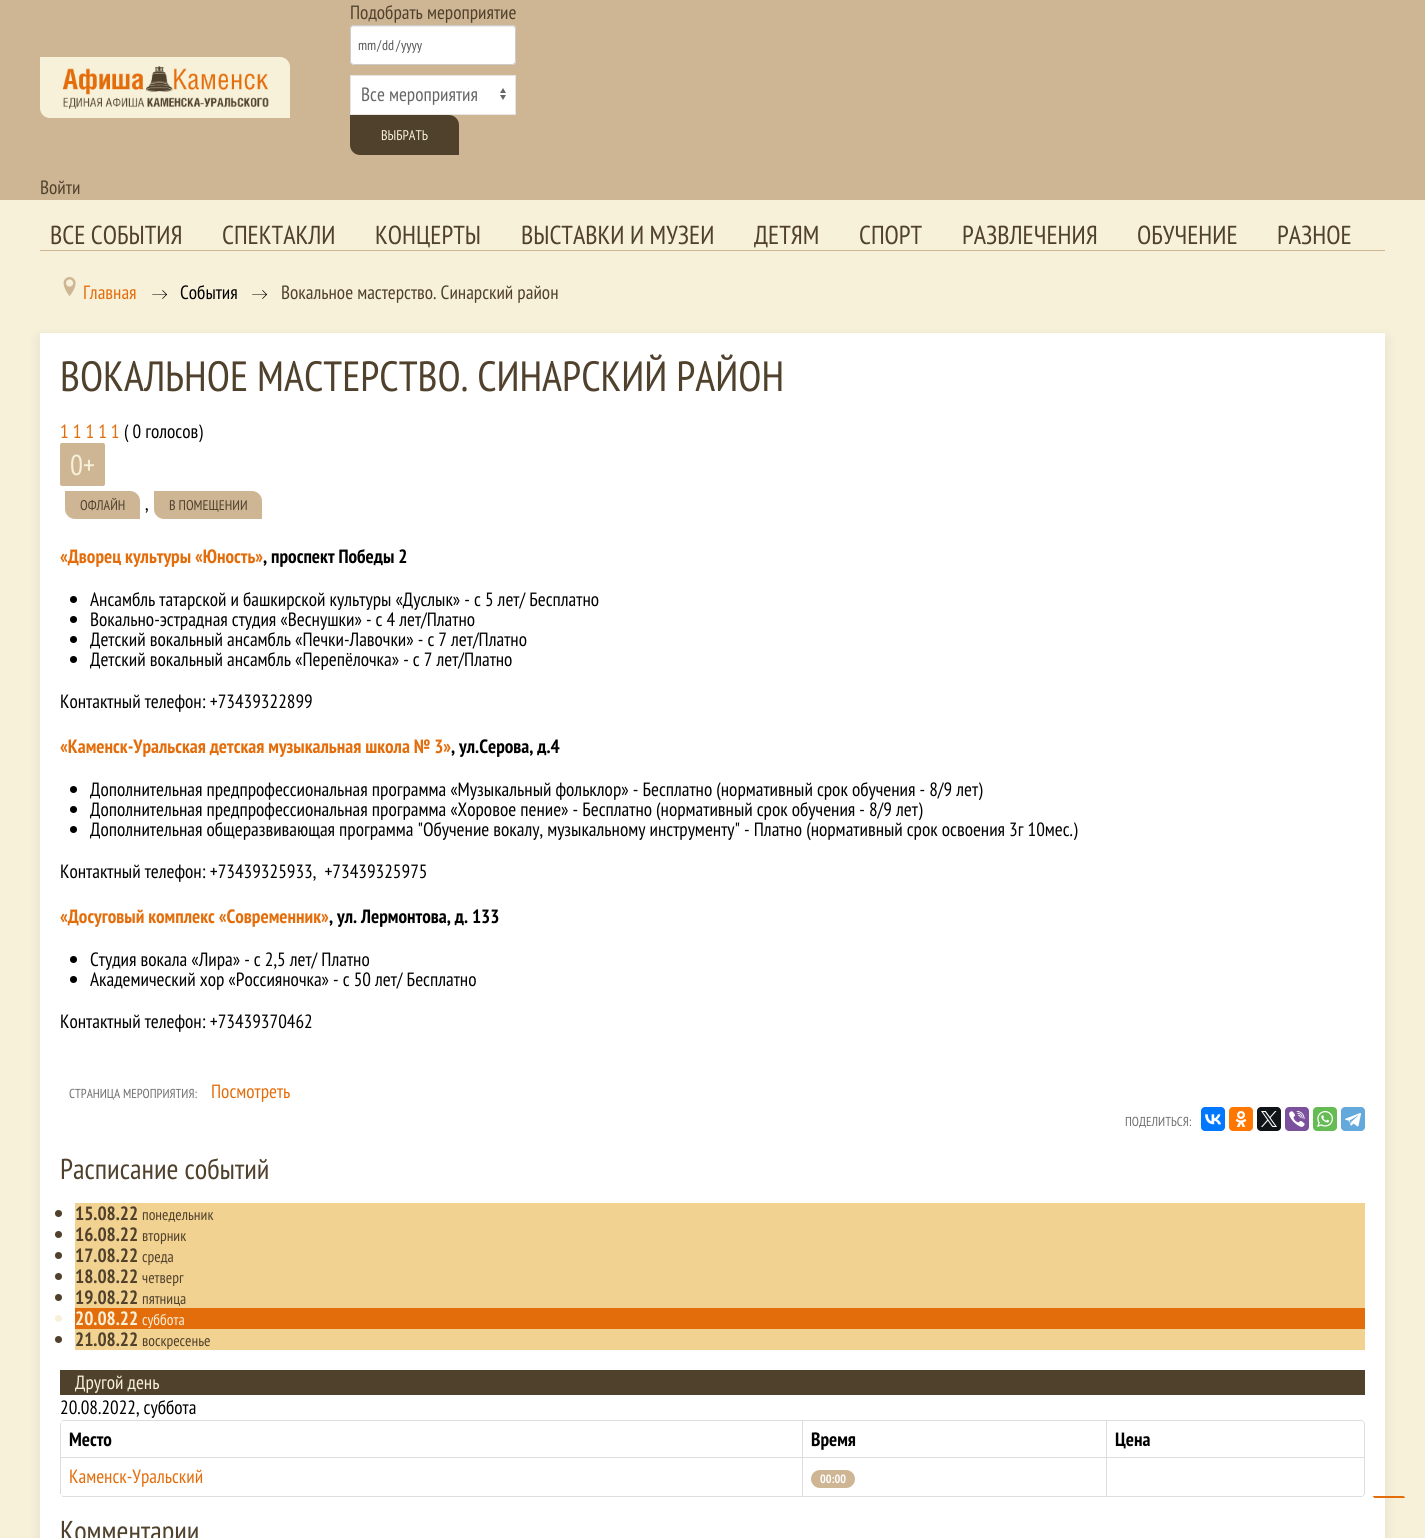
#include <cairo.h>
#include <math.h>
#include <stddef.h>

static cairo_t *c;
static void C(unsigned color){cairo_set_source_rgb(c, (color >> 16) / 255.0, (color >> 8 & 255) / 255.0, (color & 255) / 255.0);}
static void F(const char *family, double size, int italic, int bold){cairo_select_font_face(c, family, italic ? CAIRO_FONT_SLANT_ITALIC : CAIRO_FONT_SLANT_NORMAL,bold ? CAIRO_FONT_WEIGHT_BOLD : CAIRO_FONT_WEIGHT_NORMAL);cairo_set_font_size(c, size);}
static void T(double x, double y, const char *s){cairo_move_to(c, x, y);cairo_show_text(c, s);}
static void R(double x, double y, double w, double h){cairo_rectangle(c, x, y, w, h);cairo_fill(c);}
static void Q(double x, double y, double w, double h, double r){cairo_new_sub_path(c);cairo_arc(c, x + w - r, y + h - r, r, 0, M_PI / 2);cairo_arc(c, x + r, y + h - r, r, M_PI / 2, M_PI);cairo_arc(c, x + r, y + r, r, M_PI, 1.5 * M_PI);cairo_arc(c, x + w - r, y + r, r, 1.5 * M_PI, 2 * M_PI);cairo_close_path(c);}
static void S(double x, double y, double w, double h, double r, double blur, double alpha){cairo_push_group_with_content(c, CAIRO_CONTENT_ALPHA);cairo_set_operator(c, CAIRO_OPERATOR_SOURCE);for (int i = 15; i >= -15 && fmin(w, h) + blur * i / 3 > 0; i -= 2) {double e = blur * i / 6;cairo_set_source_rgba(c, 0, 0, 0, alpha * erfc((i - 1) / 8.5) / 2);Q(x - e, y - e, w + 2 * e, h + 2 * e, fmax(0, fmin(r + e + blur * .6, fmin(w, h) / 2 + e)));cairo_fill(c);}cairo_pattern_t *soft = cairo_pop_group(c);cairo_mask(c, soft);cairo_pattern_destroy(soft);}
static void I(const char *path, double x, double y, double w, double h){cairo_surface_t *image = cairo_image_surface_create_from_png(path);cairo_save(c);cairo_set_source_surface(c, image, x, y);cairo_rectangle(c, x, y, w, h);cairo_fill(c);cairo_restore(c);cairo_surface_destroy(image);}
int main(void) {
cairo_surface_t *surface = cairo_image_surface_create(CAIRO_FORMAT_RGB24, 1425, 1538);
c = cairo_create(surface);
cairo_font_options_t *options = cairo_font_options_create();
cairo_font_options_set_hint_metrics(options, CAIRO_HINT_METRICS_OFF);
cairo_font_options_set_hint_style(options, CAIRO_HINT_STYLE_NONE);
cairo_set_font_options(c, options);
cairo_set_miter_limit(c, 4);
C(0xf7f1da);
cairo_paint(c);
C(0xceb695);
R(0,0,1425,200);
C(0xf7f1da);
cairo_new_path(c);
cairo_move_to(c,40,57);
cairo_line_to(c,280,57);
cairo_curve_to(c,285.5,57,290,61.5,290,67);
cairo_line_to(c,290,118);
cairo_line_to(c,50,118);
cairo_curve_to(c,44.5,118,40,113.5,40,108);
cairo_close_path(c);
cairo_fill(c);
I("1.png",62,66,207,43);
F("PT Sans Narrow",19.2,0,0);
C(0x50412d);
T(350,19,"Подобрать мероприятие");
C(0xffffff);
Q(350,25,166,40,4);
cairo_fill(c);
C(0xececec);
cairo_new_path(c);
cairo_move_to(c,354,27);
cairo_line_to(c,512,27);
cairo_curve_to(c,514,27,515,28,515,30);
cairo_curve_to(c,515,28,514,26,512,26);
cairo_line_to(c,354,26);
cairo_curve_to(c,352,26,351,28,351,30);
cairo_curve_to(c,351,28,352,27,354,27);
cairo_close_path(c);
cairo_fill(c);
Q(350.5,25.5,165,39,3.5);
C(0xcccccc);
cairo_set_line_width(c,1);
cairo_stroke(c);
F("PT Sans Narrow",14,0,0);
C(0x555555);
T(358,50,"mm");
T(377,50,"/");
T(382,50,"dd");
T(396,50,"/");
T(401,50,"yyyy");
C(0xffffff);
R(351,76,164,38);
I("2.png",500,88,6,12);
cairo_rectangle(c,350.5,75.5,165,39);
C(0xe5e5e5);
cairo_stroke(c);
F("PT Sans Narrow",19.2,0,0);
C(0x666666);
T(361,101,"Все мероприятия");
C(0x50412d);
cairo_new_path(c);
cairo_move_to(c,350,115);
cairo_line_to(c,449,115);
cairo_curve_to(c,454.5,115,459,119.5,459,125);
cairo_line_to(c,459,155);
cairo_line_to(c,360,155);
cairo_curve_to(c,354.5,155,350,150.5,350,145);
cairo_close_path(c);
cairo_fill(c);
F("PT Sans Narrow",14,0,0);
C(0xf7f1da);
T(381,140,"ВЫБРАТЬ");
F("PT Sans Narrow",19.2,0,0);
C(0x50412d);
T(40,194,"Войти");
F("PT Sans Narrow",26,0,0);
T(50,244,"ВСЕ СОБЫТИЯ");
T(222,244,"СПЕКТАКЛИ");
T(375,244,"КОНЦЕРТЫ");
T(521,244,"ВЫСТАВКИ И МУЗЕИ");
T(754,244,"ДЕТЯМ");
T(859,244,"СПОРТ");
T(962,244,"РАЗВЛЕЧЕНИЯ");
T(1137,244,"ОБУЧЕНИЕ");
T(1277,244,"РАЗНОЕ");
C(0xceb695);
R(40,250,1345,1);
I("3.png",63,277,13,19);
F("PT Sans Narrow",19.2,0,0);
C(0xe46d0b);
T(83,299,"Главная");
I("4.png",152,290,15,9);
C(0x000000);
T(180,299,"События");
I("4.png",252,290,15,9);
C(0x50412d);
T(281,299,"Вокальное мастерство. Синарский район");
C(0x000000);
S(40,338,1345,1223,0,7.5,.08);
C(0xffffff);
R(40,333,1345,1205);
F("PT Sans Narrow",42.25,0,0);
C(0x50412d);
T(60,391,"ВОКАЛЬНОЕ МАСТЕРСТВО. СИНАРСКИЙ РАЙОН");
F("PT Sans Narrow",19.2,0,0);
C(0xe46d0b);
T(60,438,"1 1 1 1 1");
C(0x000000);
T(124,438,"( 0 голосов)");
C(0xceb695);
Q(60,443,45,43,2);
cairo_fill(c);
F("PT Sans Narrow",28.75,0,0);
C(0xf7f1da);
T(70,475,"0+");
C(0xceb695);
cairo_new_path(c);
cairo_move_to(c,65,491);
cairo_line_to(c,130,491);
cairo_curve_to(c,135.5,491,140,495.5,140,501);
cairo_line_to(c,140,519);
cairo_line_to(c,75,519);
cairo_curve_to(c,69.5,519,65,514.5,65,509);
cairo_close_path(c);
cairo_fill(c);
F("PT Sans Narrow",14,0,0);
C(0x50412d);
T(80,510,"ОФЛАЙН");
F("PT Sans Narrow",19.2,0,0);
C(0x000000);
T(145,510,",");
C(0xceb695);
cairo_new_path(c);
cairo_move_to(c,154,491);
cairo_line_to(c,252,491);
cairo_curve_to(c,257.5,491,262,495.5,262,501);
cairo_line_to(c,262,519);
cairo_line_to(c,164,519);
cairo_curve_to(c,158.5,519,154,514.5,154,509);
cairo_close_path(c);
cairo_fill(c);
F("PT Sans Narrow",14,0,0);
C(0x50412d);
T(169,510,"В ПОМЕЩЕНИИ");
F("PT Sans Narrow",19.2,0,1);
C(0xe46d0b);
T(60,563,"«Дворец культуры «Юность»");
C(0x000000);
T(263,563,", проспект Победы 2");
cairo_new_path(c);
cairo_arc(c,73.5,599.5,3.5,0,2 * M_PI);
cairo_fill(c);
F("PT Sans Narrow",19.2,0,0);
T(90,606,"Ансамбль татарской и башкирской культуры «Дуслык» - с 5 лет/ Бесплатно");
cairo_new_path(c);
cairo_arc(c,73.5,619.5,3.5,0,2 * M_PI);
cairo_fill(c);
T(90,626,"Вокально-эстрадная студия «Веснушки» - с 4 лет/Платно");
cairo_new_path(c);
cairo_arc(c,73.5,639.5,3.5,0,2 * M_PI);
cairo_fill(c);
T(90,646,"Детский вокальный ансамбль «Печки-Лавочки» - с 7 лет/Платно");
cairo_new_path(c);
cairo_arc(c,73.5,659.5,3.5,0,2 * M_PI);
cairo_fill(c);
T(90,666,"Детский вокальный ансамбль «Перепёлочка» - с 7 лет/Платно");
T(60,708,"Контактный телефон: +73439322899");
F("PT Sans Narrow",19.2,0,1);
C(0xe46d0b);
T(60,753,"«Каменск-Уральская детская музыкальная школа № 3»");
C(0x000000);
T(451,753,", ул.Серова, д.4");
cairo_new_path(c);
cairo_arc(c,73.5,789.5,3.5,0,2 * M_PI);
cairo_fill(c);
F("PT Sans Narrow",19.2,0,0);
T(90,796,"Дополнительная предпрофессиональная программа «Музыкальный фольклор» - Бесплатно (нормативный срок обучения - 8/9 лет)");
cairo_new_path(c);
cairo_arc(c,73.5,809.5,3.5,0,2 * M_PI);
cairo_fill(c);
T(90,816,"Дополнительная предпрофессиональная программа «Хоровое пение» - Бесплатно (нормативный срок обучения - 8/9 лет)");
cairo_new_path(c);
cairo_arc(c,73.5,829.5,3.5,0,2 * M_PI);
cairo_fill(c);
T(90,836,"Дополнительная общеразвивающая программа \"Обучение вокалу, музыкальному инструменту\" - Платно (нормативный срок освоения 3г 10мес.)");
T(60,878,"Контактный телефон: +73439325933,  +73439325975");
F("PT Sans Narrow",19.2,0,1);
C(0xe46d0b);
T(60,923,"«Досуговый комплекс «Современник»");
C(0x000000);
T(329,923,", ул. Лермонтова, д. 133");
cairo_new_path(c);
cairo_arc(c,73.5,959.5,3.5,0,2 * M_PI);
cairo_fill(c);
F("PT Sans Narrow",19.2,0,0);
T(90,966,"Студия вокала «Лира» - с 2,5 лет/ Платно");
cairo_new_path(c);
cairo_arc(c,73.5,979.5,3.5,0,2 * M_PI);
cairo_fill(c);
T(90,986,"Академический хор «Россияночка» - с 50 лет/ Бесплатно");
T(60,1028,"Контактный телефон: +73439370462");
F("PT Sans Narrow",13,0,0);
C(0x707070);
T(69,1098,"СТРАНИЦА МЕРОПРИЯТИЯ:");
F("PT Sans Narrow",19.2,0,0);
C(0xe46d0b);
T(211,1098,"Посмотреть");
F("PT Sans Narrow",13,0,0);
C(0x707070);
T(1125,1126,"ПОДЕЛИТЬСЯ:");
C(0x0077ff);
Q(1201,1107,24,24,4);
cairo_fill(c);
I("5.png",1205,1114,16,11);
C(0xff7700);
Q(1229,1107,24,24,4);
cairo_fill(c);
I("6.png",1235,1111,12,16);
C(0x0f1419);
Q(1257,1107,24,24,4);
cairo_fill(c);
I("7.png",1261,1111,16,16);
C(0x7b519d);
Q(1285,1107,24,24,4);
cairo_fill(c);
I("8.png",1289,1111,16,16);
C(0x65bc54);
Q(1313,1107,24,24,4);
cairo_fill(c);
I("9.png",1317,1111,16,16);
C(0x64a9dc);
Q(1341,1107,24,24,4);
cairo_fill(c);
I("10.png",1345,1113,16,14);
F("PT Sans Narrow",28.75,0,0);
C(0x50412d);
T(60,1179,"Расписание событий");
C(0xf2d291);
R(75,1203,1290,105);
C(0x50412d);
cairo_new_path(c);
cairo_arc(c,58.5,1213.5,3.5,0,2 * M_PI);
cairo_fill(c);
F("PT Sans Narrow",19.2,0,1);
T(75,1220,"15.08.22");
F("PT Sans Narrow",15.5,0,0);
T(142,1220,"понедельник");
cairo_new_path(c);
cairo_arc(c,58.5,1234.5,3.5,0,2 * M_PI);
cairo_fill(c);
F("PT Sans Narrow",19.2,0,1);
T(75,1241,"16.08.22");
F("PT Sans Narrow",15.5,0,0);
T(142,1241,"вторник");
cairo_new_path(c);
cairo_arc(c,58.5,1255.5,3.5,0,2 * M_PI);
cairo_fill(c);
F("PT Sans Narrow",19.2,0,1);
T(75,1262,"17.08.22");
F("PT Sans Narrow",15.5,0,0);
T(142,1262,"среда");
cairo_new_path(c);
cairo_arc(c,58.5,1276.5,3.5,0,2 * M_PI);
cairo_fill(c);
F("PT Sans Narrow",19.2,0,1);
T(75,1283,"18.08.22");
F("PT Sans Narrow",15.5,0,0);
T(142,1283,"четверг");
cairo_new_path(c);
cairo_arc(c,58.5,1297.5,3.5,0,2 * M_PI);
cairo_fill(c);
F("PT Sans Narrow",19.2,0,1);
T(75,1304,"19.08.22");
F("PT Sans Narrow",15.5,0,0);
T(142,1304,"пятница");
C(0xe46d0b);
R(75,1308,1290,21);
C(0xf7f1da);
cairo_new_path(c);
cairo_arc(c,58.5,1318.5,3.5,0,2 * M_PI);
cairo_fill(c);
F("PT Sans Narrow",19.2,0,1);
T(75,1325,"20.08.22");
F("PT Sans Narrow",15.5,0,0);
T(142,1325,"суббота");
C(0xf2d291);
R(75,1329,1290,21);
C(0x50412d);
cairo_new_path(c);
cairo_arc(c,58.5,1339.5,3.5,0,2 * M_PI);
cairo_fill(c);
F("PT Sans Narrow",19.2,0,1);
T(75,1346,"21.08.22");
F("PT Sans Narrow",15.5,0,0);
T(142,1346,"воскресенье");
R(60,1370,1305,25);
F("PT Sans Narrow",19.2,0,0);
C(0xf7f1da);
T(75,1389,"Другой день");
C(0x000000);
T(60,1414,"20.08.2022, суббота");
C(0xdddddd);
cairo_set_fill_rule(c,CAIRO_FILL_RULE_EVEN_ODD);
cairo_new_path(c);
cairo_move_to(c,64,1420);
cairo_line_to(c,1361,1420);
cairo_curve_to(c,1363,1420,1365,1422,1365,1424);
cairo_line_to(c,1365,1493);
cairo_curve_to(c,1365,1495,1363,1497,1361,1497);
cairo_line_to(c,64,1497);
cairo_curve_to(c,62,1497,60,1495,60,1493);
cairo_line_to(c,60,1424);
cairo_curve_to(c,60,1422,62,1420,64,1420);
cairo_close_path(c);
cairo_move_to(c,64,1421);
cairo_line_to(c,1361,1421);
cairo_curve_to(c,1363,1421,1364,1422,1364,1424);
cairo_line_to(c,1364,1493);
cairo_curve_to(c,1364,1495,1363,1496,1361,1496);
cairo_line_to(c,64,1496);
cairo_curve_to(c,62,1496,60,1495,60,1493);
cairo_line_to(c,60,1424);
cairo_curve_to(c,60,1422,62,1421,64,1421);
cairo_close_path(c);
cairo_fill(c);
R(60,1423,1,34);
F("PT Sans Narrow",19.2,0,1);
C(0x000000);
T(69,1446,"Место");
C(0xdddddd);
R(802,1421,1,36);
C(0x000000);
T(811,1446,"Время");
C(0xdddddd);
R(1106,1421,1,36);
C(0x000000);
T(1115,1446,"Цена");
C(0xdddddd);
R(60,1457,1304,1);
R(60,1457,1,37);
F("PT Sans Narrow",19.2,0,0);
C(0xe46d0b);
T(69,1483,"Каменск-Уральский");
C(0xdddddd);
R(802,1457,1,39);
C(0xceb695);
Q(811,1470,44,18,9);
cairo_fill(c);
F("PT Sans Narrow",12,0,1);
C(0xffffff);
T(820,1483,"00:00");
C(0xdddddd);
R(1106,1457,1,39);
F("PT Sans Narrow",28.75,0,0);
C(0x50412d);
T(60,1541,"Комментарии");
C(0xe46d0b);
cairo_new_path(c);
cairo_move_to(c,1373,1496);
cairo_line_to(c,1403,1496);
cairo_curve_to(c,1404,1496,1405,1497,1405,1498);
cairo_line_to(c,1375,1498);
cairo_curve_to(c,1374,1498,1373,1497,1373,1496);
cairo_close_path(c);
cairo_fill(c);
cairo_surface_write_to_png(surface, "o.png");
cairo_font_options_destroy(options);
cairo_destroy(c);
cairo_surface_destroy(surface);
return 0;
}
